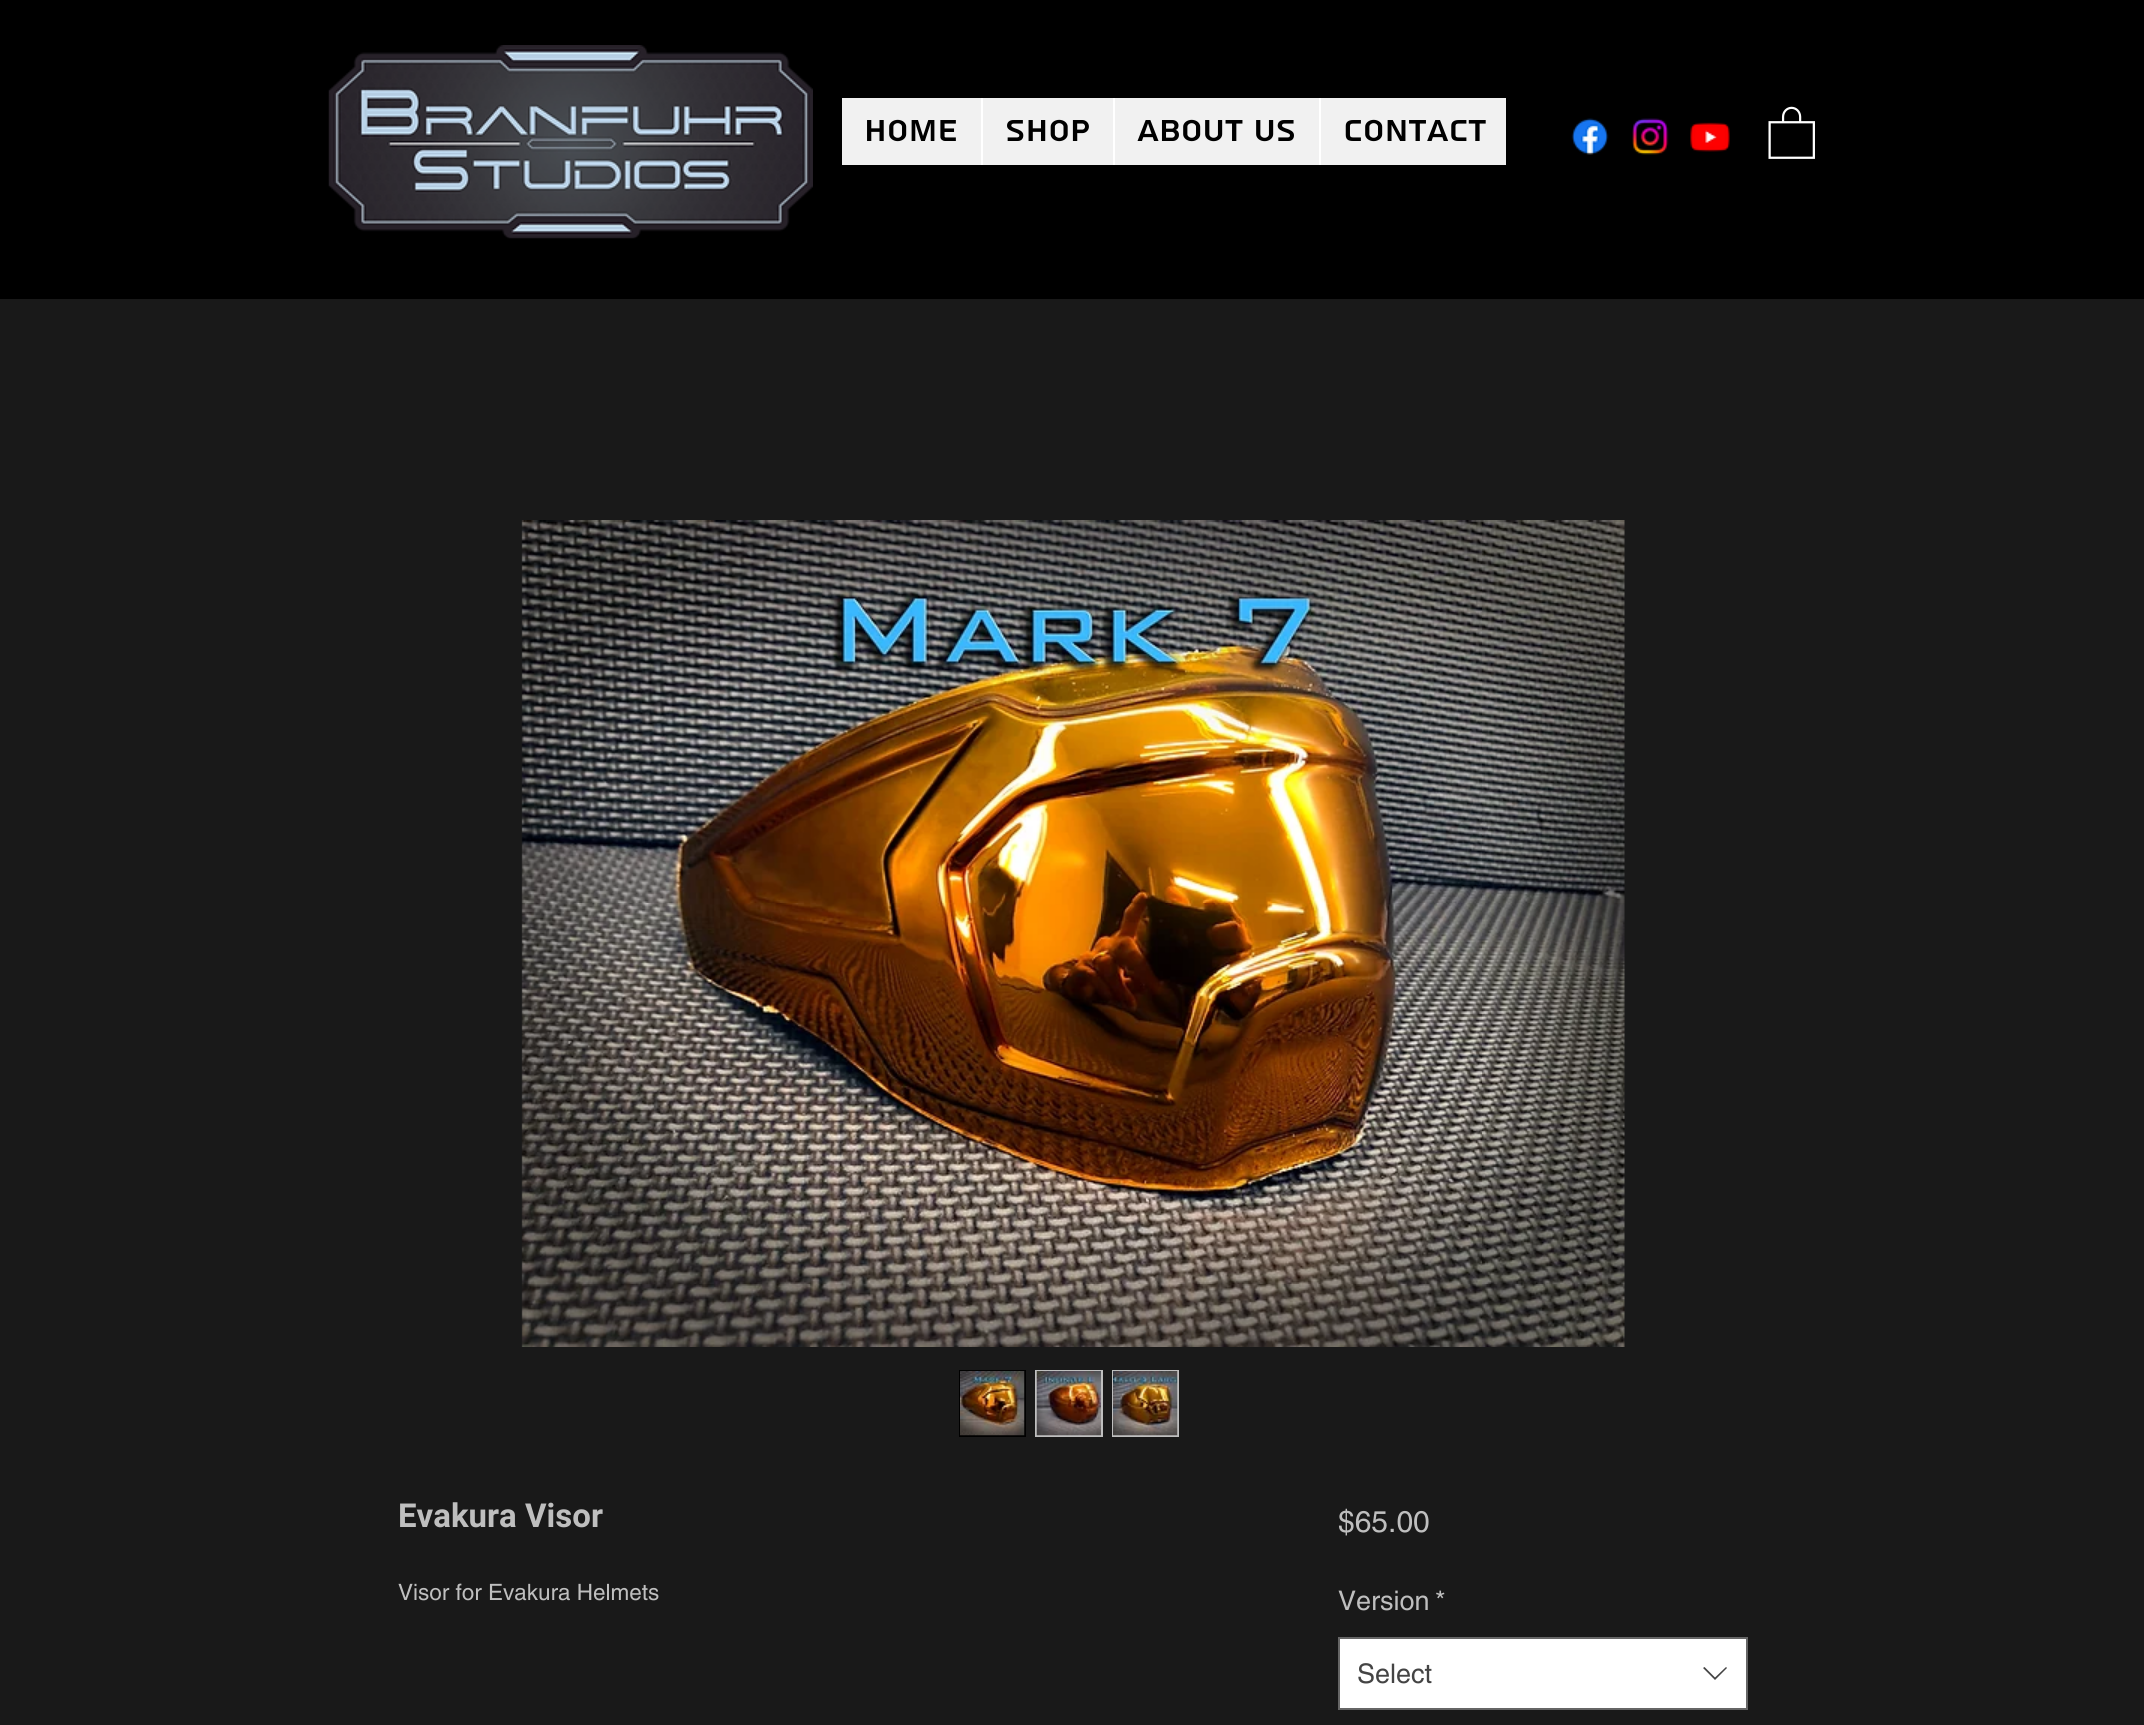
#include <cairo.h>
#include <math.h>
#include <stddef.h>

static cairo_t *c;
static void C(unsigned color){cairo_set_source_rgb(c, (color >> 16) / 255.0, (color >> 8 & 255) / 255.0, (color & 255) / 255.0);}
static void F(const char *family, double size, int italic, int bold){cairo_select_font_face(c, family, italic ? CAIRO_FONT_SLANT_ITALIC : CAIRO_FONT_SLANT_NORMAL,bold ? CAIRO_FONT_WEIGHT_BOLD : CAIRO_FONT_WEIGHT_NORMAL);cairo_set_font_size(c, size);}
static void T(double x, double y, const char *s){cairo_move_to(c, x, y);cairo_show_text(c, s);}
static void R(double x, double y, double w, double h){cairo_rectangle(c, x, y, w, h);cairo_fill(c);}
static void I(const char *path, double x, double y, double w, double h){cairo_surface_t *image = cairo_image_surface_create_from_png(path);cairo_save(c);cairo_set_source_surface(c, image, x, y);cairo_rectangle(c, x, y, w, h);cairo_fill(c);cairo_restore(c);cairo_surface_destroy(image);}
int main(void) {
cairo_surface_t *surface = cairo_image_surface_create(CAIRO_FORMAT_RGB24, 2144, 1725);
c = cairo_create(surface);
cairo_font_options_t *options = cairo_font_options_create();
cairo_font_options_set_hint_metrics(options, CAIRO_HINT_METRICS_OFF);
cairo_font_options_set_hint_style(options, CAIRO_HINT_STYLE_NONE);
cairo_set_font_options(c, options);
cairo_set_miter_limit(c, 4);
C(0x191919);
cairo_paint(c);
C(0x000000);
R(0,0,2144,299);
I("1.png",328,45,485,194);
C(0xf1f1f1);
R(842,98,664,67);
F("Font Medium",40.5,0,0);
C(0x000000);
T(864,141,"Home");
C(0xffffff);
R(981,98,2,67);
C(0x000000);
T(1005,141,"Shop");
C(0xffffff);
R(1113,98,2,67);
C(0x000000);
T(1137,141,"About Us");
C(0xffffff);
R(1319,98,2,67);
C(0x000000);
T(1343,141,"Contact");
I("2.png",1571,118,38,37);
I("3.png",1632,118,37,37);
I("4.png",1690,122,40,30);
I("5.png",1768,106,47,53);
I("6.png",521,520,1104,827);
cairo_rectangle(c,960,1371,65,65);
cairo_stroke(c);
I("7.png",960,1371,65,65);
C(0xbfbfbf);
R(1035,1370,68,67);
I("8.png",1036,1371,65,65);
R(1112,1370,67,67);
I("9.png",1113,1371,65,65);
F("Roboto",33,0,1);
T(398,1527,"Evakura Visor");
F("helvetica",22.5,0,0);
T(398,1600,"Visor for Evakura Helmets");
F("helvetica",30,0,0);
T(1338,1532,"$65.00");
F("helvetica",27,0,0);
T(1338,1610,"Version");
T(1435,1610,"*");
C(0xffffff);
cairo_rectangle(c,1339,1638,408,71);
cairo_fill_preserve(c);
C(0x666666);
cairo_stroke(c);
C(0x444444);
T(1357,1683,"Select");
cairo_set_fill_rule(c,CAIRO_FILL_RULE_EVEN_ODD);
cairo_new_path(c);
cairo_move_to(c,1726,1667);
cairo_line_to(c,1727,1668);
cairo_line_to(c,1715,1680);
cairo_line_to(c,1703,1668);
cairo_line_to(c,1704.5,1667);
cairo_line_to(c,1715,1677.5);
cairo_close_path(c);
cairo_fill(c);
cairo_surface_write_to_png(surface, "o.png");
cairo_font_options_destroy(options);
cairo_destroy(c);
cairo_surface_destroy(surface);
return 0;
}
